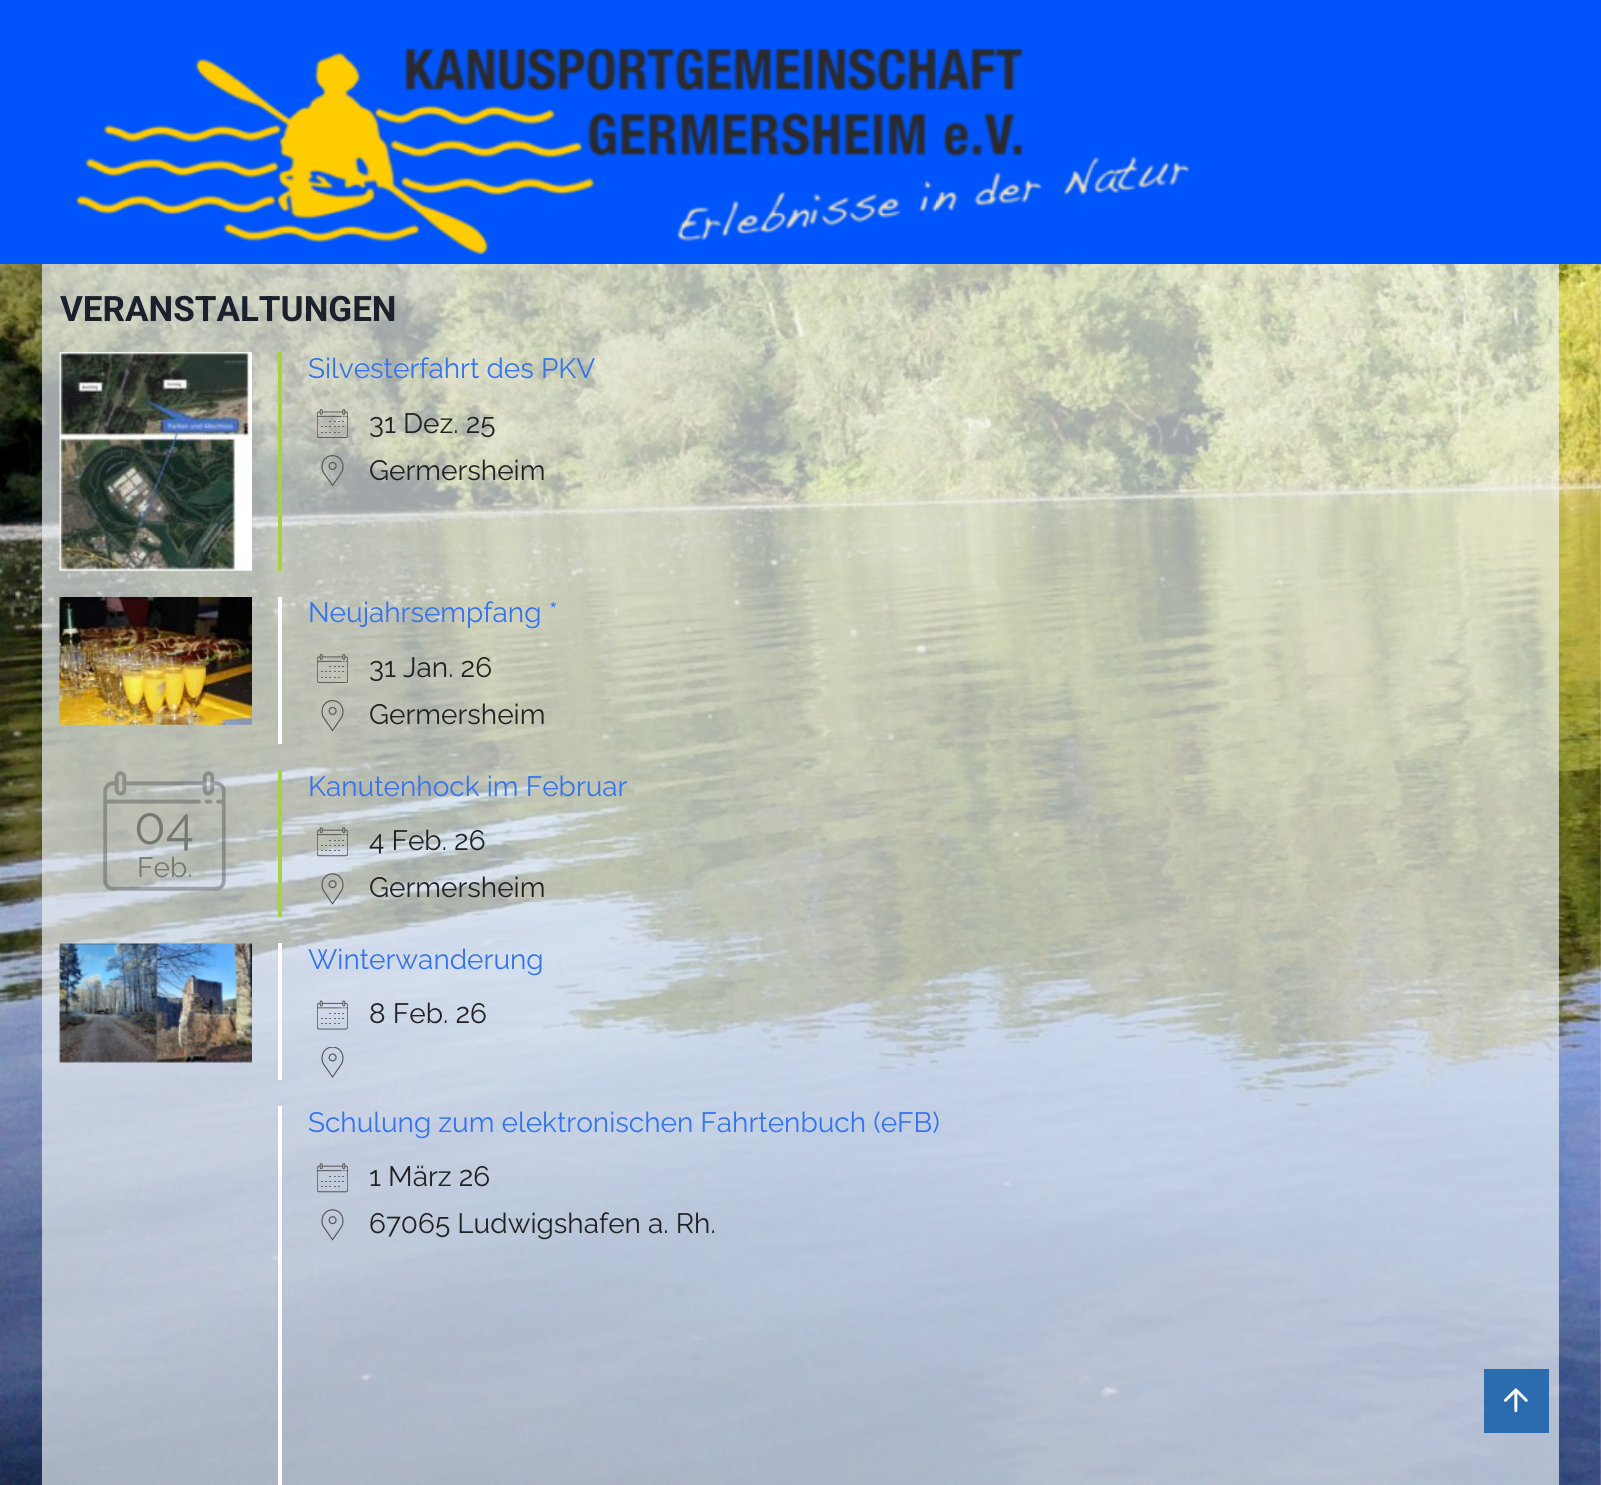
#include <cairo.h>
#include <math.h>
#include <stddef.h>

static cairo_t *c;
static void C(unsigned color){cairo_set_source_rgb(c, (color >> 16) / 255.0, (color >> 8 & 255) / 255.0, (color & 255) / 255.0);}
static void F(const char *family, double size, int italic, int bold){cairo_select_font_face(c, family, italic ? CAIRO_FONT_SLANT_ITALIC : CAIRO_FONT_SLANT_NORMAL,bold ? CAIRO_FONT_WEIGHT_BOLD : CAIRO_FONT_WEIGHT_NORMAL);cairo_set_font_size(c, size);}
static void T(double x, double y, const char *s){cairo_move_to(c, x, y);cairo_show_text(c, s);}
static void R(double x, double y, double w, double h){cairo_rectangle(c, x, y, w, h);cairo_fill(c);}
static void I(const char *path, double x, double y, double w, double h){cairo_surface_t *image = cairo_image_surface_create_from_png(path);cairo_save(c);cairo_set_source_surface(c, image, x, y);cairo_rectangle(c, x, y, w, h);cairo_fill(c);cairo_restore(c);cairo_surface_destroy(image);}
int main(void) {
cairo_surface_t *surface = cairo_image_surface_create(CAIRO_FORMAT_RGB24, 1601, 1485);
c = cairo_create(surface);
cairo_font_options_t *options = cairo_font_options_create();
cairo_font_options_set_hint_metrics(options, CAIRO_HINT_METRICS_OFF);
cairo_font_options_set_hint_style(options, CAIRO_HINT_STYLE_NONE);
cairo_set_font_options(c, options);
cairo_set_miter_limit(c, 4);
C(0xffffff);
cairo_paint(c);
I("1.png",0,264,1601,1221);
C(0x0054fb);
R(0,0,1601,264);
I("2.png",76,48,1113,207);
cairo_set_source_rgba(c,0.929,0.949,0.969,0.68);
R(42,264,1517,1221);
F("Roboto",35,0,1);
C(0x1a202c);
T(60,321,"VERANSTALTUNGEN");
I("3.png",59,352,193,219);
C(0xa8d144);
R(278,352,4,219);
F("Raleway",28,0,0);
C(0x3372f0);
T(308,378,"Silvesterfahrt des PKV");
I("4.png",317,409,31,29);
C(0x212121);
T(369,433,"31 Dez. 25");
I("5.png",321,455,23,32);
T(369,480,"Germersheim");
I("6.png",59,597,193,128);
C(0xffffff);
R(278,597,4,147);
C(0x3372f0);
T(308,622,"Neujahrsempfang *");
I("7.png",317,654,31,29);
C(0x212121);
T(369,677,"31 Jan. 26");
I("8.png",321,700,23,32);
T(369,724,"Germersheim");
I("9.png",103,771,123,120);
F("Raleway",52,0,0);
C(0x757872);
T(134,844,"04");
F("Raleway",28,0,0);
T(137,877,"Feb.");
C(0xa8d144);
R(278,770,4,147);
C(0x3372f0);
T(308,796,"Kanutenhock im Februar");
I("10.png",317,827,31,30);
C(0x212121);
T(369,850,"4 Feb. 26");
I("11.png",321,873,23,32);
T(369,897,"Germersheim");
I("12.png",59,943,193,120);
C(0xffffff);
R(278,943,4,137);
C(0x3372f0);
T(308,969,"Winterwanderung");
I("13.png",317,1000,31,30);
C(0x212121);
T(369,1023,"8 Feb. 26");
I("14.png",321,1047,23,31);
C(0xffffff);
R(278,1106,4,379);
C(0x3372f0);
T(308,1132,"Schulung zum elektronischen Fahrtenbuch (eFB)");
I("15.png",317,1163,31,30);
C(0x212121);
T(369,1186,"1 März 26");
I("16.png",321,1209,23,32);
T(369,1233,"67065 Ludwigshafen a. Rh.");
C(0x2b6cb0);
R(1484,1369,65,64);
I("17.png",1504,1388,24,25);
cairo_surface_write_to_png(surface, "o.png");
cairo_font_options_destroy(options);
cairo_destroy(c);
cairo_surface_destroy(surface);
return 0;
}
